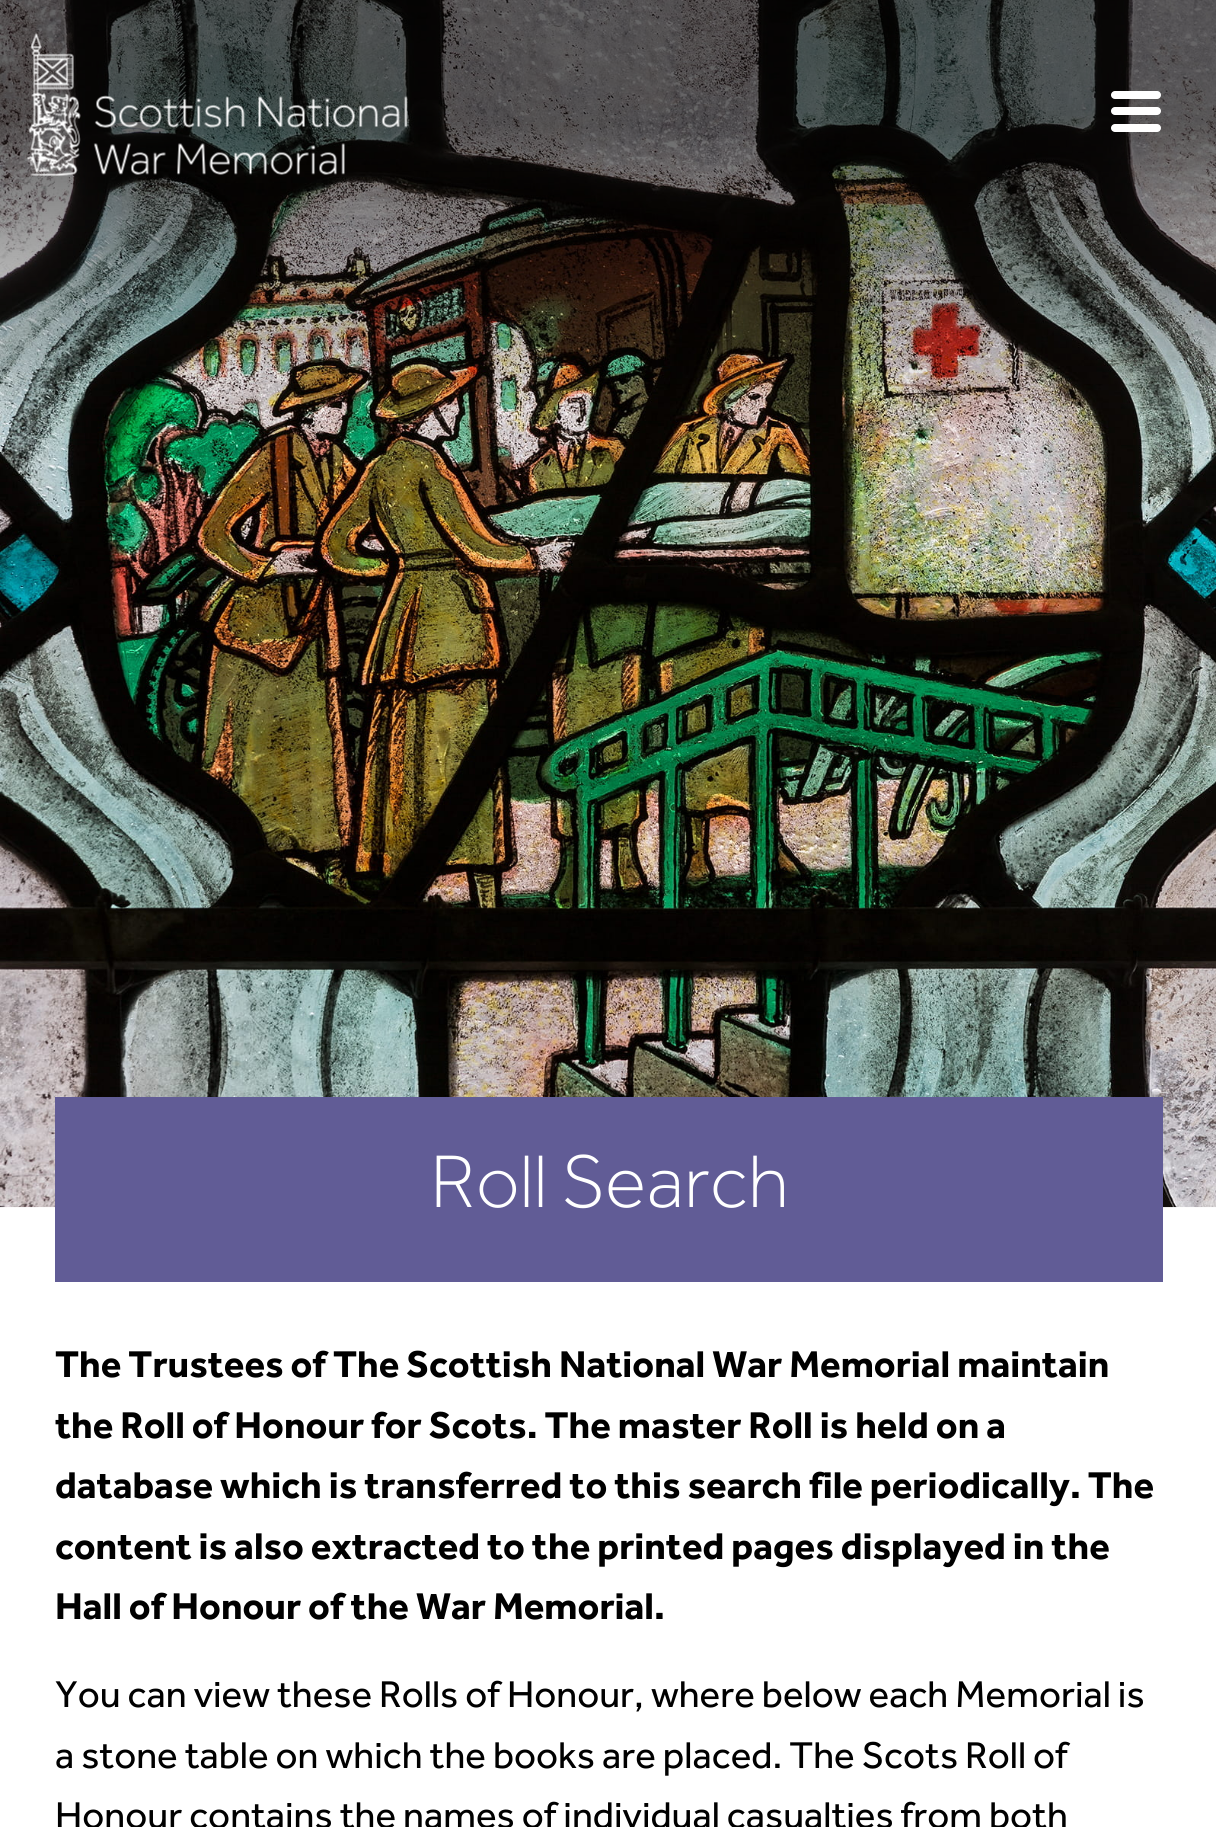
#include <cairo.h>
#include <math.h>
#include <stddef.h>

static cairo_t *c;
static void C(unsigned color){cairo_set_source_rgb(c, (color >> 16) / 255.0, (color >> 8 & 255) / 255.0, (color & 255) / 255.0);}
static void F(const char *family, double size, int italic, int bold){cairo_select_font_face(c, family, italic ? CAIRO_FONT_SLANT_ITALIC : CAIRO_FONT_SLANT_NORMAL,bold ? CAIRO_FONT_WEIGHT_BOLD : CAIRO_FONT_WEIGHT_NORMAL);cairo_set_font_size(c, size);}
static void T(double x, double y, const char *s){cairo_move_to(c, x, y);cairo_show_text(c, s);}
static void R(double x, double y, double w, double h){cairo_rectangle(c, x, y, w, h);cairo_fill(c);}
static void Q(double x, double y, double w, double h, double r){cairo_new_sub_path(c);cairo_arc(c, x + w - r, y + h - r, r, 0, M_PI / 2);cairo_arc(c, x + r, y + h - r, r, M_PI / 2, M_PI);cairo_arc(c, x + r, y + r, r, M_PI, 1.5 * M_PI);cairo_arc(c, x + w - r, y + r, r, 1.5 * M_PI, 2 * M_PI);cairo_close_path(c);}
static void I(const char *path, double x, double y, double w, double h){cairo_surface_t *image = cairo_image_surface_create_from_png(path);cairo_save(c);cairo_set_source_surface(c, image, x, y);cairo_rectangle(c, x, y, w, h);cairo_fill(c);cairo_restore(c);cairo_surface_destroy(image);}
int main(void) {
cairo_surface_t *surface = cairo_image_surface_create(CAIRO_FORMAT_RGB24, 1216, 1827);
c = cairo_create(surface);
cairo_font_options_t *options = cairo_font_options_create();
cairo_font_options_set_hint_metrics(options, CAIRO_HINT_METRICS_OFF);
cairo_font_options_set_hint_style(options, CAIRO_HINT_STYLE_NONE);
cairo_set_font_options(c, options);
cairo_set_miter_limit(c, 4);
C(0xffffff);
cairo_paint(c);
I("1.png",0,0,1216,1208);
I("2.png",27,33,381,143);
C(0xffffff);
Q(1111,91,50,8,4);
cairo_fill(c);
Q(1111,107,50,8,4);
cairo_fill(c);
Q(1111,124,50,8,4);
cairo_fill(c);
C(0x615c96);
R(55,1097,1108,185);
F("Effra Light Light",77,0,0);
C(0xffffff);
T(430,1207,"Roll Search");
F("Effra",38.5,0,1);
C(0x000000);
T(55,1377,"The Trustees of The Scottish National War Memorial maintain");
T(55,1438,"the Roll of Honour for Scots. The master Roll is held on a");
T(55,1498,"database which is transferred to this search file periodically. The");
T(55,1559,"content is also extracted to the printed pages displayed in the");
T(55,1619,"Hall of Honour of the War Memorial.");
F("Effra",38.5,0,0);
T(55,1707,"You can view these Rolls of Honour, where below each Memorial is");
T(55,1768,"a stone table on which the books are placed. The Scots Roll of");
T(55,1828,"Honour contains the names of individual casualties from both");
cairo_surface_write_to_png(surface, "o.png");
cairo_font_options_destroy(options);
cairo_destroy(c);
cairo_surface_destroy(surface);
return 0;
}
